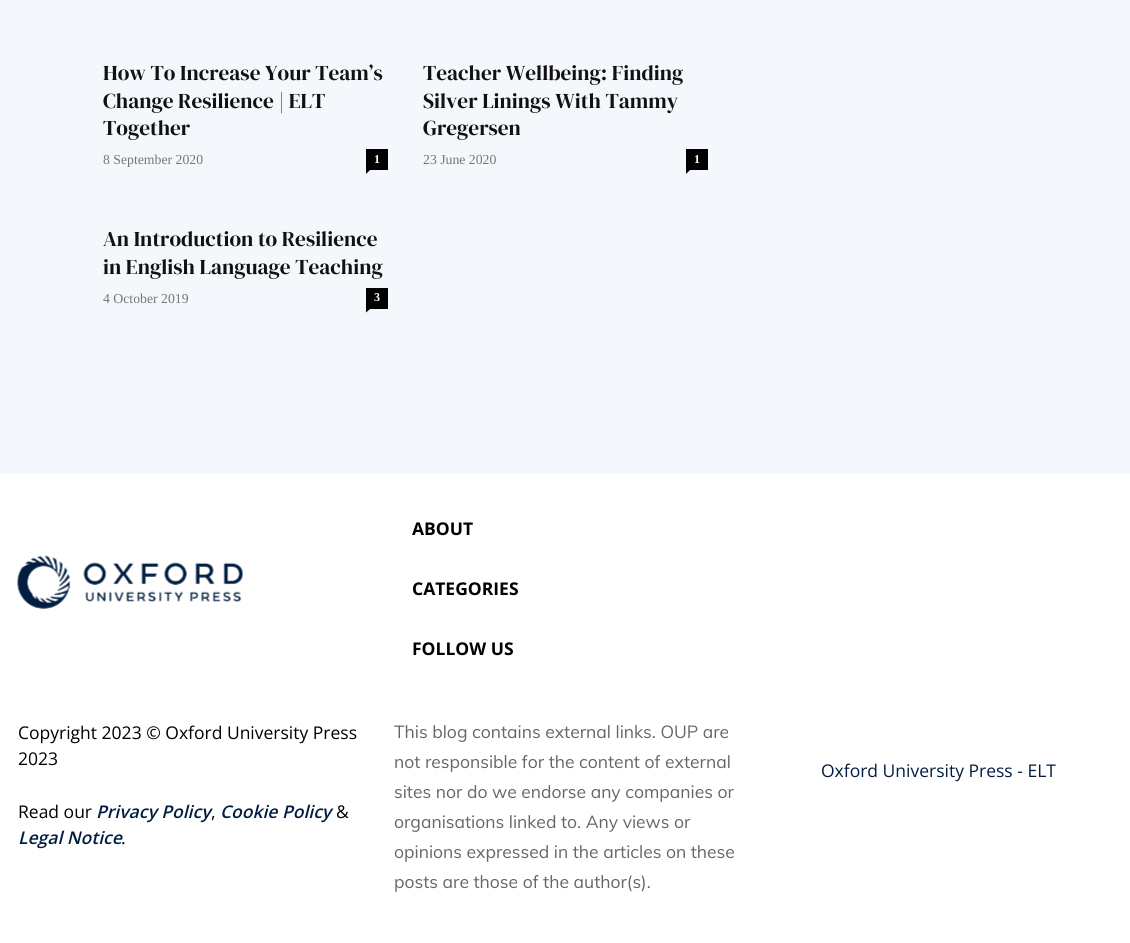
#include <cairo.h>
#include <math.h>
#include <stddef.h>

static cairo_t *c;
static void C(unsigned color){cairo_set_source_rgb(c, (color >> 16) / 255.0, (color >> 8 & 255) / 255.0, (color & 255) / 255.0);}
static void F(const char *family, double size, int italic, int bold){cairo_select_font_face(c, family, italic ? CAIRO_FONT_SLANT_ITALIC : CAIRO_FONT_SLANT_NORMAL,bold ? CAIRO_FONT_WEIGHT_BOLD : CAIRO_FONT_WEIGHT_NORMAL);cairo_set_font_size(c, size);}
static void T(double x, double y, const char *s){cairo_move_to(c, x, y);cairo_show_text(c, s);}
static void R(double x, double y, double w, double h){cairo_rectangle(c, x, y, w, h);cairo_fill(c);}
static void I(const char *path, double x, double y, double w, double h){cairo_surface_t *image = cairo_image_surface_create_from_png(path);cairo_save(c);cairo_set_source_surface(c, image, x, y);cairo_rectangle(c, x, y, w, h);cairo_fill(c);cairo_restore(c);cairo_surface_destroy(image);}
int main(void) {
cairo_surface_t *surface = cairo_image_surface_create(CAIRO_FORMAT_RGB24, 1130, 943);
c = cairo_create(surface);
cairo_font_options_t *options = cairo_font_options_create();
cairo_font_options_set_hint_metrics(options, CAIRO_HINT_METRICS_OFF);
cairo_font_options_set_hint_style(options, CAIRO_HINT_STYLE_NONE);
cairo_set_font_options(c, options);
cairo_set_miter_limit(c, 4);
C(0xf4f7fc);
cairo_paint(c);
F("DM Serif Display",21.25,0,0);
C(0x111111);
T(103,80,"How To Increase Your Team’s");
T(103,108,"Change Resilience | ELT");
T(103,135,"Together");
F("Liberation Serif",13.75,0,0);
C(0x767676);
T(103,164,"8 September 2020");
C(0x000000);
R(366,149,22,21);
F("Liberation Serif",12,0,1);
C(0xffffff);
T(374,163,"1");
C(0x000000);
cairo_new_path(c);
cairo_move_to(c,366,170);
cairo_line_to(c,370,170);
cairo_line_to(c,366,174);
cairo_close_path(c);
cairo_fill(c);
F("DM Serif Display",21.25,0,0);
C(0x111111);
T(423,80,"Teacher Wellbeing: Finding");
T(423,108,"Silver Linings With Tammy");
T(423,135,"Gregersen");
F("Liberation Serif",13.75,0,0);
C(0x767676);
T(423,164,"23 June 2020");
C(0x000000);
R(686,149,22,21);
F("Liberation Serif",12,0,1);
C(0xffffff);
T(694,163,"1");
C(0x000000);
cairo_new_path(c);
cairo_move_to(c,686,170);
cairo_line_to(c,690,170);
cairo_line_to(c,686,174);
cairo_close_path(c);
cairo_fill(c);
F("DM Serif Display",21.25,0,0);
C(0x111111);
T(103,246,"An Introduction to Resilience");
T(103,274,"in English Language Teaching");
F("Liberation Serif",13.75,0,0);
C(0x767676);
T(103,303,"4 October 2019");
C(0x000000);
R(366,288,22,21);
F("Liberation Serif",12,0,1);
C(0xffffff);
T(374,301,"3");
C(0x000000);
cairo_new_path(c);
cairo_move_to(c,366,309);
cairo_line_to(c,370,309);
cairo_line_to(c,366,312.5);
cairo_close_path(c);
cairo_fill(c);
C(0xffffff);
R(0,474,1130,469);
I("1.png",17,555,226,54);
F("Open Sans",17.5,0,0);
C(0x000000);
T(18,739,"Copyright 2023 © Oxford University Press");
T(18,765,"2023");
T(18,818,"Read our");
F("Open Sans SemiBold",17.5,1,0);
C(0x011e41);
T(96,818,"Privacy Policy");
T(220,818,"Cookie Policy");
F("Open Sans",17.5,0,0);
C(0x000000);
T(336,818,"&");
T(211,818,",");
F("Open Sans SemiBold",17.5,1,0);
C(0x011e41);
T(18,844,"Legal Notice");
F("Open Sans",17.5,0,0);
C(0x000000);
T(121,844,".");
F("Open Sans",17.5,0,1);
T(412,535,"ABOUT");
T(412,595,"CATEGORIES");
T(412,655,"FOLLOW US");
F("Muli",17.5,0,0);
C(0x666666);
T(394,738,"This blog contains external links. OUP are");
T(394,768,"not responsible for the content of external");
T(394,798,"sites nor do we endorse any companies or");
T(394,828,"organisations linked to. Any views or");
T(394,858,"opinions expressed in the articles on these");
T(394,888,"posts are those of the author(s).");
F("Open Sans",17.5,0,0);
C(0x011e41);
T(821,777,"Oxford University Press - ELT");
cairo_surface_write_to_png(surface, "o.png");
cairo_font_options_destroy(options);
cairo_destroy(c);
cairo_surface_destroy(surface);
return 0;
}
